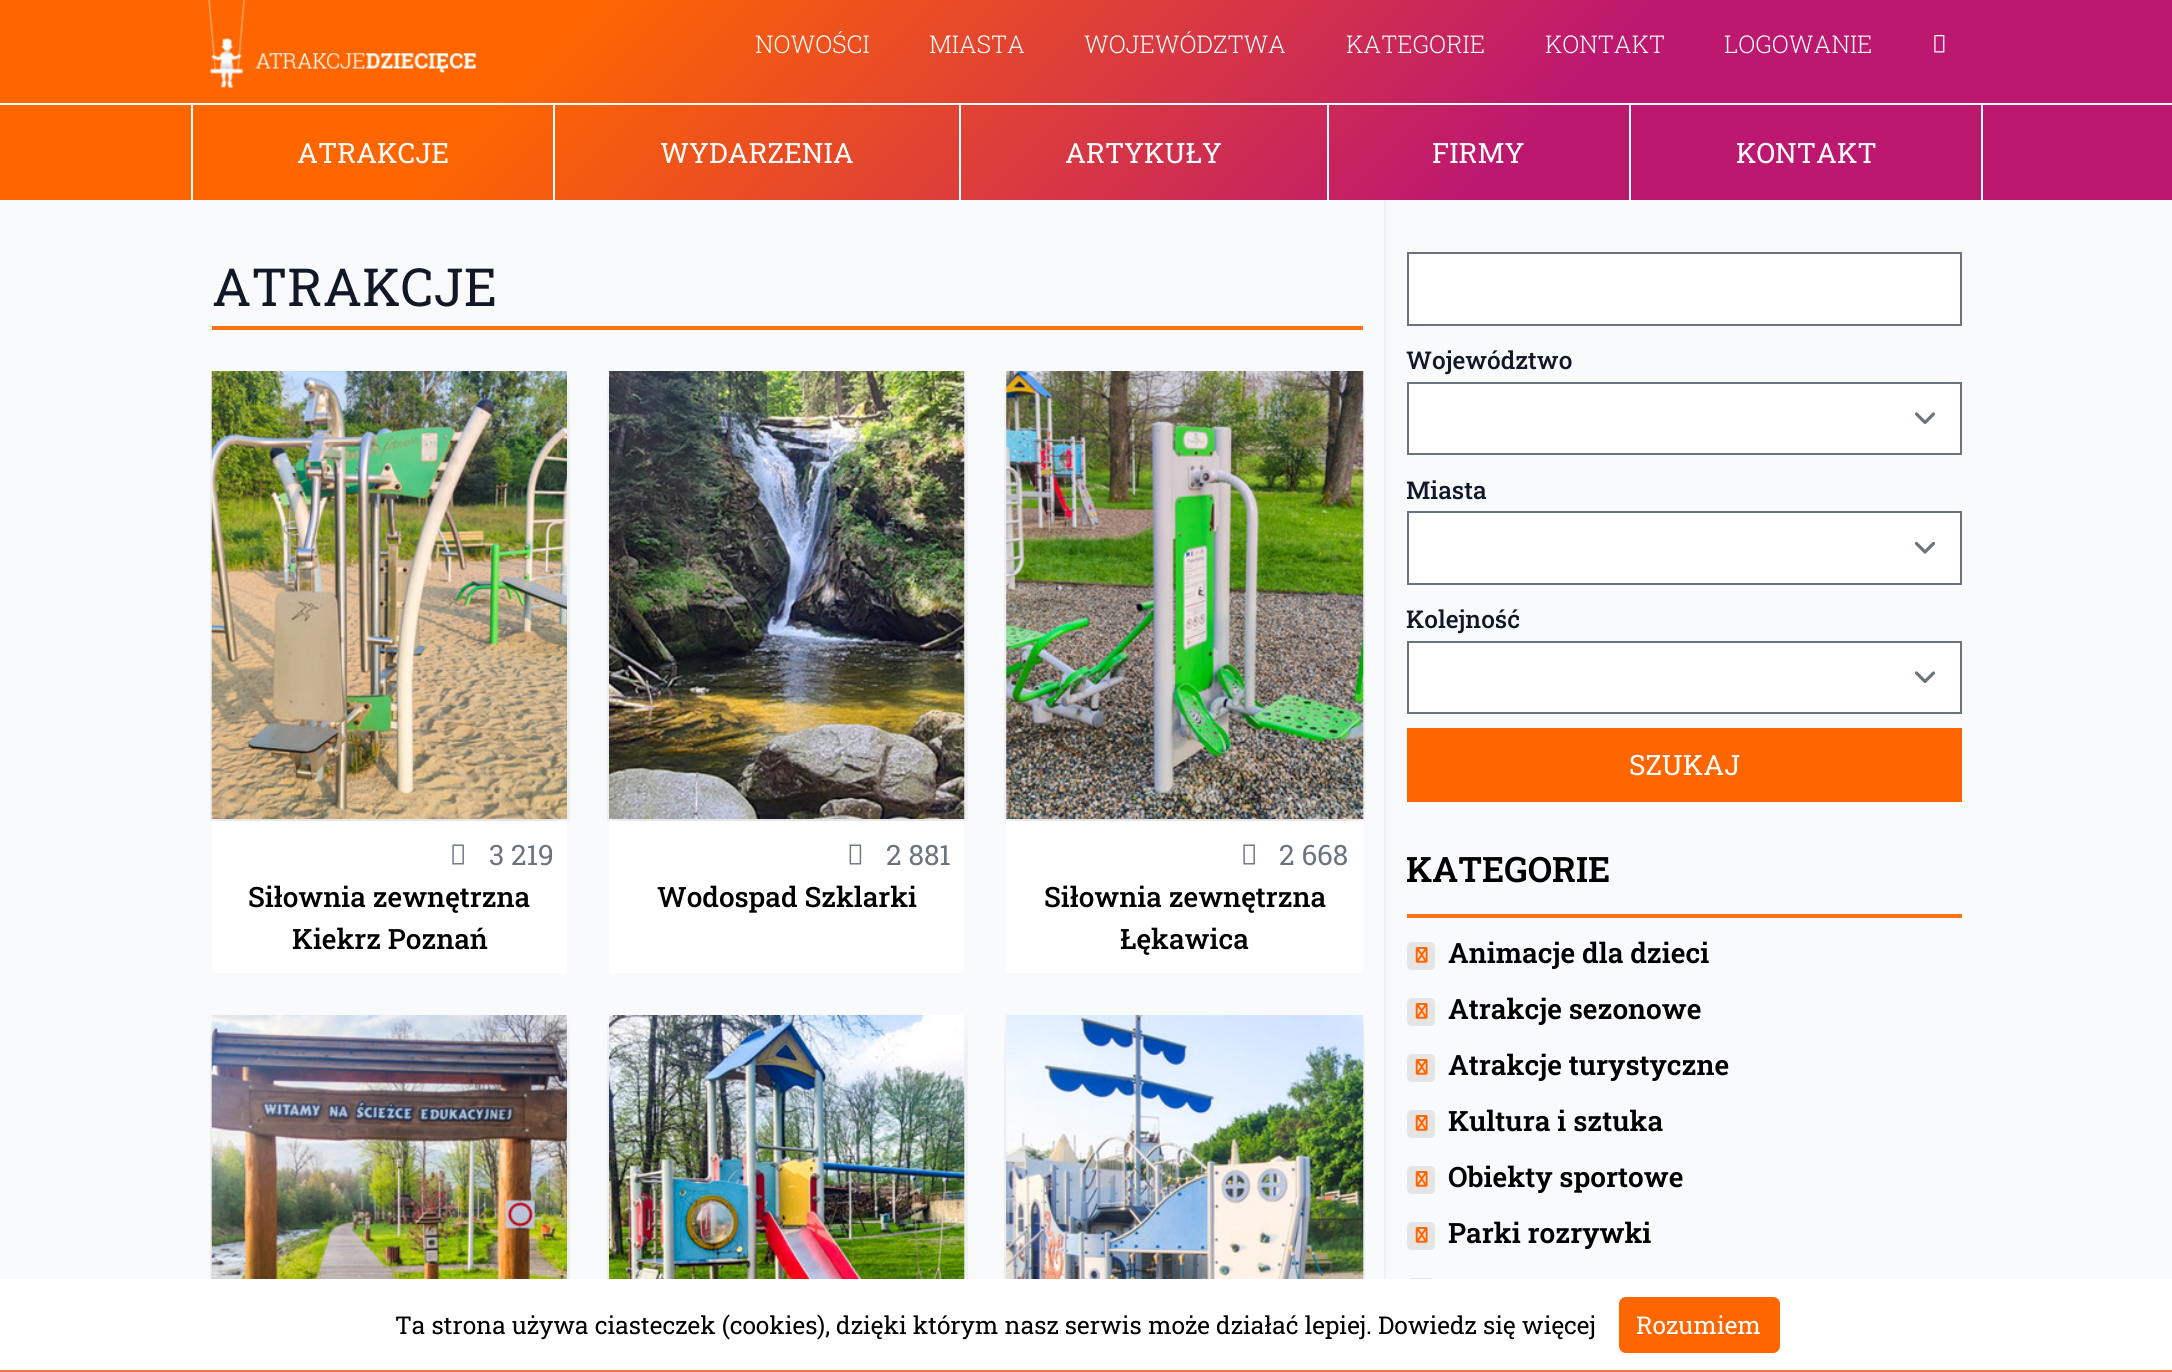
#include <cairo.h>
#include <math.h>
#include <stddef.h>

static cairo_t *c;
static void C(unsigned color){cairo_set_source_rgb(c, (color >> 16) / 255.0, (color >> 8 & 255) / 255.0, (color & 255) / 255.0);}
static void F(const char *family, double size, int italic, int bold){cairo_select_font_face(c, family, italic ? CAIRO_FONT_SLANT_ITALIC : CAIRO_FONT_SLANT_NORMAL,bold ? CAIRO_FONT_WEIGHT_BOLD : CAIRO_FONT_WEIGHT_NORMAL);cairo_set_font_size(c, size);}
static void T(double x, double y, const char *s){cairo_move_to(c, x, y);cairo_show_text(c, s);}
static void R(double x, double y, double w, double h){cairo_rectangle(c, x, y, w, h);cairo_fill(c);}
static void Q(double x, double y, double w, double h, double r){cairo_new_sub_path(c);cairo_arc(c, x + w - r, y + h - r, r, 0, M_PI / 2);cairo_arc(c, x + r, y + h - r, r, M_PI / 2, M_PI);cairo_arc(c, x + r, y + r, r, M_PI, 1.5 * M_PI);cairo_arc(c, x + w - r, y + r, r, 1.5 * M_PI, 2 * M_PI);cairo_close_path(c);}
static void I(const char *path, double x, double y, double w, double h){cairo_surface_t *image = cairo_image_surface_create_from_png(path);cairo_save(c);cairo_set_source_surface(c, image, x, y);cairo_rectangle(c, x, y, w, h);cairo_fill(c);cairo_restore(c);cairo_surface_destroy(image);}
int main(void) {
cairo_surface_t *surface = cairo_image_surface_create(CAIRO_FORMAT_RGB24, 2172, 1372);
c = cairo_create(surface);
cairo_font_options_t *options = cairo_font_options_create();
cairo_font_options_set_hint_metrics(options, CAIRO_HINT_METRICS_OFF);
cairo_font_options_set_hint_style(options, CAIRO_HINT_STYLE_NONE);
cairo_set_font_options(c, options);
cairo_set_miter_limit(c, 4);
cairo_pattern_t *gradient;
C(0xf9fafc);
cairo_paint(c);
gradient = cairo_pattern_create_linear(494,-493,1680,693);
cairo_pattern_add_color_stop_rgba(gradient,0,1,0.4,0,1);
cairo_pattern_add_color_stop_rgba(gradient,.25,1,0.4,0,1);
cairo_pattern_add_color_stop_rgba(gradient,.7,0.741,0.094,0.439,1);
cairo_pattern_add_color_stop_rgba(gradient,1,0.741,0.094,0.439,1);
cairo_set_source(c,gradient);
cairo_pattern_destroy(gradient);
R(0,0,2172,200);
C(0xffffff);
R(0,103,2172,2);
I("1.png",208,0,268,88);
F("Roboto Slab Light",24.5,0,0);
T(755,53,"NOWOŚCI");
T(929,53,"MIASTA");
T(1084,53,"WOJEWÓDZTWA");
T(1346,53,"KATEGORIE");
T(1545,53,"KONTAKT");
T(1724,53,"LOGOWANIE");
I("2.png",1934,35,11,18);
R(191,105,2,95);
F("Roboto Slab",28,0,0);
T(297,163,"ATRAKCJE");
R(553,105,2,95);
T(660,163,"WYDARZENIA");
R(959,105,2,95);
T(1065,163,"ARTYKUŁY");
R(1327,105,2,95);
T(1432,163,"FIRMY");
R(1981,105,2,95);
R(1629,105,2,95);
T(1736,163,"KONTAKT");
C(0xeef2f2);
R(1384,200,2,1079);
C(0xf97316);
R(212,326,1151,4);
F("Roboto Slab",52.5,0,0);
C(0x111827);
T(212,306,"ATRAKCJE");
C(0xffffff);
R(212,819,355,154);
I("3.png",210,371,360,450);
I("4.png",452,844,12,21);
F("Roboto Slab",28,0,0);
C(0x6b7280);
T(489,865,"3 219");
F("Roboto Slab Medium",28,0,0);
C(0x000000);
T(248,907,"Siłownia zewnętrzna");
T(292,949,"Kiekrz Poznań");
C(0xffffff);
R(609,819,355,154);
I("5.png",607,371,361,450);
I("6.png",849,844,13,21);
F("Roboto Slab",28,0,0);
C(0x6b7280);
T(886,865,"2 881");
F("Roboto Slab Medium",28,0,0);
C(0x000000);
T(657,907,"Wodospad Szklarki");
C(0xffffff);
R(1006,371,357,602);
I("7.png",1004,371,361,450);
I("4.png",1243,844,12,21);
F("Roboto Slab",28,0,0);
C(0x6b7280);
T(1279,865,"2 668");
F("Roboto Slab Medium",28,0,0);
C(0x000000);
T(1044,907,"Siłownia zewnętrzna");
T(1120,949,"Łękawica");
I("8.png",210,1015,360,264);
I("9.png",607,1015,361,264);
I("10.png",1004,1015,361,264);
C(0xffffff);
cairo_rectangle(c,1408,253,553,72);
cairo_fill_preserve(c);
C(0x6b7280);
cairo_stroke(c);
F("Roboto Slab Medium",24.5,0,0);
C(0x111827);
T(1406,369,"Województwo");
C(0xffffff);
R(1409,384,551,69);
cairo_new_path(c);
cairo_move_to(c,1916.5,414);
cairo_line_to(c,1925,422.5);
cairo_line_to(c,1933.5,414);
C(0x6b7280);
cairo_set_line_width(c,3.2);
cairo_set_line_cap(c,CAIRO_LINE_CAP_ROUND);
cairo_set_line_join(c,CAIRO_LINE_JOIN_ROUND);
cairo_stroke(c);
cairo_rectangle(c,1408,383,553,71);
cairo_set_line_width(c,2);
cairo_set_line_cap(c,CAIRO_LINE_CAP_BUTT);
cairo_set_line_join(c,CAIRO_LINE_JOIN_MITER);
cairo_stroke(c);
C(0x111827);
T(1406,499,"Miasta");
C(0xffffff);
R(1409,513,551,70);
cairo_new_path(c);
cairo_move_to(c,1916.5,543.5);
cairo_line_to(c,1925,552);
cairo_line_to(c,1933.5,543.5);
C(0x6b7280);
cairo_set_line_width(c,3.2);
cairo_set_line_cap(c,CAIRO_LINE_CAP_ROUND);
cairo_set_line_join(c,CAIRO_LINE_JOIN_ROUND);
cairo_stroke(c);
cairo_rectangle(c,1408,512,553,72);
cairo_set_line_width(c,2);
cairo_set_line_cap(c,CAIRO_LINE_CAP_BUTT);
cairo_set_line_join(c,CAIRO_LINE_JOIN_MITER);
cairo_stroke(c);
C(0x111827);
T(1406,628,"Kolejność");
C(0xffffff);
R(1409,643,551,69);
cairo_new_path(c);
cairo_move_to(c,1916.5,673);
cairo_line_to(c,1925,681.5);
cairo_line_to(c,1933.5,673);
C(0x6b7280);
cairo_set_line_width(c,3.2);
cairo_set_line_cap(c,CAIRO_LINE_CAP_ROUND);
cairo_set_line_join(c,CAIRO_LINE_JOIN_ROUND);
cairo_stroke(c);
cairo_rectangle(c,1408,642,553,71);
cairo_set_line_width(c,2);
cairo_set_line_cap(c,CAIRO_LINE_CAP_BUTT);
cairo_set_line_join(c,CAIRO_LINE_JOIN_MITER);
cairo_stroke(c);
C(0xff6600);
R(1407,728,555,74);
F("Roboto Slab",28,0,0);
C(0xffffff);
T(1629,775,"SZUKAJ");
C(0xf97316);
R(1407,914,555,4);
F("Roboto Slab SemiBold",35,0,0);
C(0x000000);
T(1406,882,"KATEGORIE");
C(0xe5e5e5);
Q(1407,942,28,28,5);
cairo_fill(c);
I("11.png",1415,947,13,16);
F("Roboto Slab SemiBold",28,0,0);
C(0x000000);
T(1448,963,"Animacje dla dzieci");
C(0xe5e5e5);
Q(1407,998,28,28,5);
cairo_fill(c);
I("11.png",1415,1003,13,16);
C(0x000000);
T(1448,1019,"Atrakcje sezonowe");
C(0xe5e5e5);
Q(1407,1054,28,28,5);
cairo_fill(c);
I("11.png",1415,1059,13,16);
C(0x000000);
T(1448,1075,"Atrakcje turystyczne");
C(0xe5e5e5);
Q(1407,1110,28,28,5);
cairo_fill(c);
I("11.png",1415,1115,13,16);
C(0x000000);
T(1448,1131,"Kultura i sztuka");
C(0xe5e5e5);
Q(1407,1166,28,28,5);
cairo_fill(c);
I("11.png",1415,1171,13,16);
C(0x000000);
T(1448,1187,"Obiekty sportowe");
C(0xe5e5e5);
Q(1407,1222,28,28,5);
cairo_fill(c);
I("11.png",1415,1227,13,16);
C(0x000000);
T(1448,1243,"Parki rozrywki");
C(0xe5e5e5);
Q(1407,1278,28,28,5);
cairo_fill(c);
C(0xffffff);
R(0,1279,2172,91);
C(0xf07647);
R(0,1370,2172,2);
F("Roboto Slab",24.5,0,0);
C(0x000000);
T(395,1334,"Ta strona używa ciasteczek (cookies), dzięki którym nasz serwis może działać lepiej. Dowiedz się więcej");
C(0xff6600);
Q(1619,1297,161,56,7);
cairo_fill(c);
C(0xffffff);
T(1636,1334,"Rozumiem");
cairo_surface_write_to_png(surface, "o.png");
cairo_font_options_destroy(options);
cairo_destroy(c);
cairo_surface_destroy(surface);
return 0;
}
